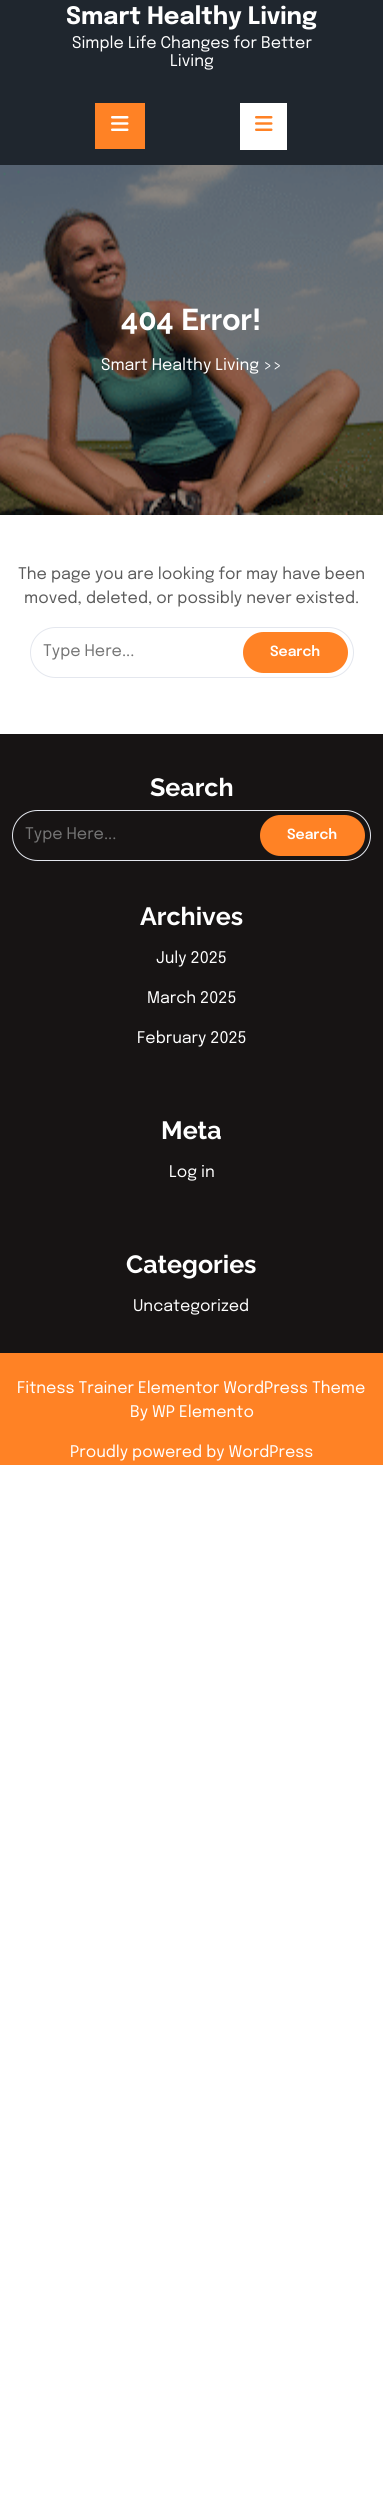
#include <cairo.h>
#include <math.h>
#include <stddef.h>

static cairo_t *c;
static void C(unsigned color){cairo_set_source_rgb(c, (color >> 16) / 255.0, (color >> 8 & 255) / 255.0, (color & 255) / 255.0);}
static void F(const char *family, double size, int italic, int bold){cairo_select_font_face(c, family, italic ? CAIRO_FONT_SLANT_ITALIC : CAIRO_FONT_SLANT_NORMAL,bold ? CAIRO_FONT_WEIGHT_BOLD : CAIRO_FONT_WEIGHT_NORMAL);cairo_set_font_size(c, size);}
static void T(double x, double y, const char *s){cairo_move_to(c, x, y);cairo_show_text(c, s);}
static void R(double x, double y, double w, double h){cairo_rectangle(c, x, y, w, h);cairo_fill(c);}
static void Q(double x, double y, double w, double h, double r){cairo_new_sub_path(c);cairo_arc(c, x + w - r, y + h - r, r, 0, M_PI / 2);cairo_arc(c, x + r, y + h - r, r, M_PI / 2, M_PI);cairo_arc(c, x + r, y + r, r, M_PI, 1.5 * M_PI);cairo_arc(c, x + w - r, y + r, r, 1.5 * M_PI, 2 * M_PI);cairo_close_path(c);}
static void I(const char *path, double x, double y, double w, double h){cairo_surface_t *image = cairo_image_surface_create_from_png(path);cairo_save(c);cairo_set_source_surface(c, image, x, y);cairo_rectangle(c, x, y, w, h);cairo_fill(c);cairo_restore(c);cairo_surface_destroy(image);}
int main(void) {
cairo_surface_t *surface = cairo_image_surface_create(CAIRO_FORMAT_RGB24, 383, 2505);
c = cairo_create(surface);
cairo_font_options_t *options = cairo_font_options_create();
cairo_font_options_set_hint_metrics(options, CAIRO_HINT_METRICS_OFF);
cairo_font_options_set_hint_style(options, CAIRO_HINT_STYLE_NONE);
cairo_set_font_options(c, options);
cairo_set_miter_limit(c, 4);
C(0xffffff);
cairo_paint(c);
C(0x1f262e);
R(0,0,383,165);
F("Epilogue",24,0,1);
C(0xffffff);
T(66,24,"Smart Healthy Living");
F("Epilogue",16,0,0);
T(72,48,"Simple Life Changes for Better");
T(170,66,"Living");
C(0xff8225);
R(95,103,50,46);
I("1.png",111,116,18,15);
C(0xffffff);
R(240,103,47,47);
I("2.png",255,116,18,15);
I("3.png",0,165,383,350);
F("Raleway",30,0,1);
T(121,330,"404 Error!");
F("Epilogue",16,0,0);
T(101,370,"Smart Healthy Living");
T(263,370,">>");
C(0x5b5b5b);
T(18,579,"The page you are looking for may have been");
T(24,603,"moved, deleted, or possibly never existed.");
Q(30.5,627.5,323,50,25);
C(0xe4e7ee);
cairo_set_line_width(c,1);
cairo_stroke(c);
C(0x757575);
T(43,656,"Type Here...");
C(0xff8225);
Q(243,632,105,41,20.5);
cairo_fill(c);
F("Epilogue SemiBold",14,0,0);
C(0xffffff);
T(270,656,"Search");
C(0x171414);
R(0,734,383,619);
F("Raleway",25,0,1);
C(0xffffff);
T(150,796,"Search");
Q(12.5,810.5,358,50,25);
C(0xe4e7ee);
cairo_stroke(c);
F("Epilogue",16,0,0);
C(0x757575);
T(25,839,"Type Here...");
C(0xff8225);
Q(260,815,105,41,20.5);
cairo_fill(c);
F("Epilogue SemiBold",14,0,0);
C(0xffffff);
T(287,839,"Search");
F("Raleway",25,0,1);
T(140,925,"Archives");
F("Epilogue",16,0,0);
T(156,963,"July 2025");
T(147,1003,"March 2025");
T(137,1043,"February 2025");
F("Raleway",25,0,1);
T(161,1139,"Meta");
F("Epilogue",16,0,0);
T(169,1177,"Log in");
F("Raleway",25,0,1);
T(126,1273,"Categories");
F("Epilogue",16,0,0);
T(133,1311,"Uncategorized");
C(0xff8225);
R(0,1353,383,112);
C(0xffffff);
T(17,1393,"Fitness Trainer Elementor WordPress Theme");
T(130,1417,"By WP Elemento");
T(70,1457,"Proudly powered by WordPress");
cairo_surface_write_to_png(surface, "o.png");
cairo_font_options_destroy(options);
cairo_destroy(c);
cairo_surface_destroy(surface);
return 0;
}
